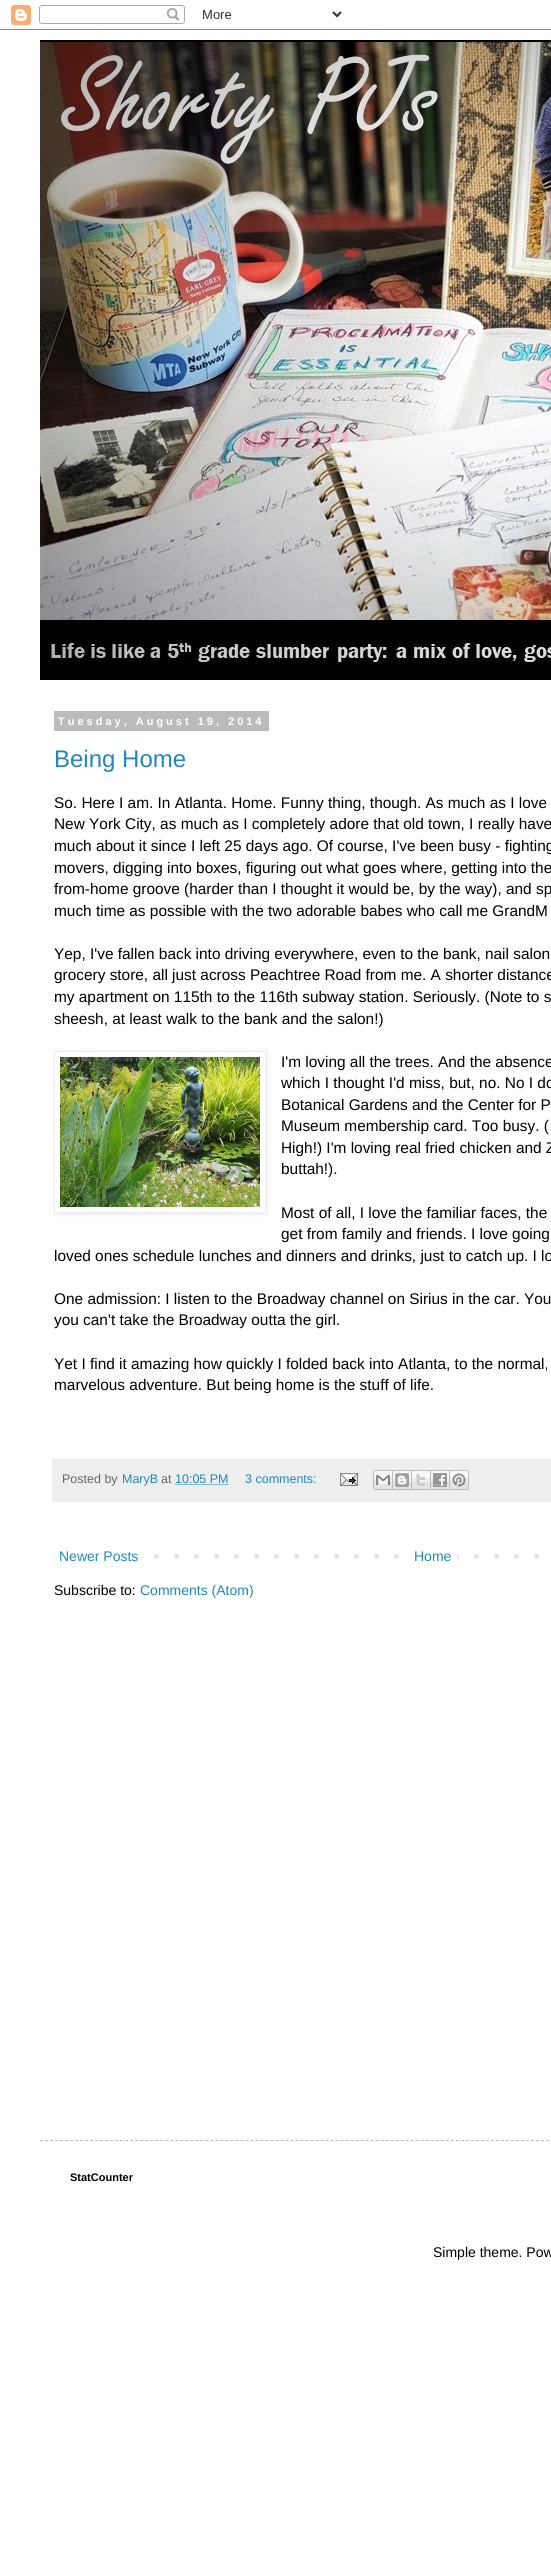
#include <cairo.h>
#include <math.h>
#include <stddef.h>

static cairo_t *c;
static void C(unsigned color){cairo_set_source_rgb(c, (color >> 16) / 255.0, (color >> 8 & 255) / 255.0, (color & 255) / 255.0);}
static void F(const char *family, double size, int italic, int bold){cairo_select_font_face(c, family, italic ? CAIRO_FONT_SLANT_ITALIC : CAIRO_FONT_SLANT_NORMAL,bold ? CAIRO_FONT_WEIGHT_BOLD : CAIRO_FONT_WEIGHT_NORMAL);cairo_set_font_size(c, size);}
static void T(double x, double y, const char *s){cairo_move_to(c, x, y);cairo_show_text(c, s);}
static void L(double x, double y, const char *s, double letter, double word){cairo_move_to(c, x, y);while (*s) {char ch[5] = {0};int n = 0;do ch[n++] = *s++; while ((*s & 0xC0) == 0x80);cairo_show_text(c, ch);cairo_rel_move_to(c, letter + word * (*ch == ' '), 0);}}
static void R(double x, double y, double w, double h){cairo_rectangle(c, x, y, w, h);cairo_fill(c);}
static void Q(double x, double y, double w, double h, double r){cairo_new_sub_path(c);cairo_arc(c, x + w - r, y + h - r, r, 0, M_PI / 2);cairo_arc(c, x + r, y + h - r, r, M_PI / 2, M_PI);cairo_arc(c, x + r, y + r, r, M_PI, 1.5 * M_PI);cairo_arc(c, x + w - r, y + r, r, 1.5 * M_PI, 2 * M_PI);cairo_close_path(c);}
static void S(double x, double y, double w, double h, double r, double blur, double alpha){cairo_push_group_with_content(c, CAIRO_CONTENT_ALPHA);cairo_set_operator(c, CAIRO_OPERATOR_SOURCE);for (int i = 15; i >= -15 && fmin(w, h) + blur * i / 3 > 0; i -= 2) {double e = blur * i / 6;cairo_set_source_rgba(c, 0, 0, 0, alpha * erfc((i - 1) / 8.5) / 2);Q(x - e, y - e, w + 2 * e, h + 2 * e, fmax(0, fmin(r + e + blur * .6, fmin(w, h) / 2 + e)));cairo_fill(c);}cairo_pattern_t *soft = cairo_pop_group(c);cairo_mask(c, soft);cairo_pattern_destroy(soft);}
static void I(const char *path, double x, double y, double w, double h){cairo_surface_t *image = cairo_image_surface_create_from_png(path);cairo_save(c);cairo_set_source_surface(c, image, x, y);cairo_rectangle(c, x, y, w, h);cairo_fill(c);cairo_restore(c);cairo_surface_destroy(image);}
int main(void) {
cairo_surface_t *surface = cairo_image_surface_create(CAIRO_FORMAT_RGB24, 551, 2563);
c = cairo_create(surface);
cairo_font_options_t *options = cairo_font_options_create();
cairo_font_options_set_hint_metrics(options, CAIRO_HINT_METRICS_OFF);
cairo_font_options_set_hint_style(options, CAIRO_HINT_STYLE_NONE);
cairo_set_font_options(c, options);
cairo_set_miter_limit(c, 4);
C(0xffffff);
cairo_paint(c);
I("1.png",0,5,551,25);
I("2.png",40,40,511,640);
C(0xbbbbbb);
R(54,711,215,20);
F("Liberation Sans",11,0,1);
C(0xffffff);
L(58,725,"Tuesday, August 19, 2014",3,0);
F("Liberation Sans",24,0,0);
C(0x2288bb);
T(54,767,"Being Home");
F("Liberation Sans",15.4,0,0);
C(0x000000);
T(54,808,"So. Here I am. In Atlanta. Home. Funny thing, though. As much as I love");
T(54,829,"New York City, as much as I completely adore that old town, I really have");
T(54,851,"much about it since I left 25 days ago. Of course, I've been busy - fighting");
T(54,873,"movers, digging into boxes, figuring out what goes where, getting into the");
T(54,894,"from-home groove (harder than I thought it would be, by the way), and sp");
T(54,916,"much time as possible with the two adorable babes who call me GrandM");
T(54,959,"Yep, I've fallen back into driving everywhere, even to the bank, nail salon");
T(54,980,"grocery store, all just across Peachtree Road from me. A shorter distance");
T(54,1002,"my apartment on 115th to the 116th subway station. Seriously. (Note to s");
T(54,1024,"sheesh, at least walk to the bank and the salon!)");
cairo_save(c);
cairo_set_fill_rule(c,CAIRO_FILL_RULE_EVEN_ODD);
cairo_new_path(c);
cairo_move_to(c,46,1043);
cairo_line_to(c,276,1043);
cairo_line_to(c,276,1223);
cairo_line_to(c,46,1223);
cairo_close_path(c);
cairo_move_to(c,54,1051);
cairo_line_to(c,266,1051);
cairo_line_to(c,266,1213);
cairo_line_to(c,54,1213);
cairo_close_path(c);
cairo_clip(c);
C(0x000000);
S(55,1052,212,162,0,2.5,.1);
cairo_restore(c);
cairo_rectangle(c,54.5,1051.5,211,161);
C(0xeeeeee);
cairo_set_line_width(c,1);
cairo_stroke(c);
I("3.png",60,1057,200,150);
C(0x000000);
T(281,1067,"I'm loving all the trees. And the absence");
T(281,1088,"which I thought I'd miss, but, no. No I do");
T(281,1110,"Botanical Gardens and the Center for P");
T(281,1131,"Museum membership card. Too busy. (");
T(281,1153,"High!) I'm loving real fried chicken and Z");
T(281,1174,"buttah!).");
T(281,1218,"Most of all, I love the familiar faces, the");
T(281,1239,"get from family and friends. I love going");
T(54,1261,"loved ones schedule lunches and dinners and drinks, just to catch up. I lo");
T(54,1304,"One admission: I listen to the Broadway channel on Sirius in the car. You");
T(54,1325,"you can't take the Broadway outta the girl.");
T(54,1369,"Yet I find it amazing how quickly I folded back into Atlanta, to the normal,");
T(54,1390,"marvelous adventure. But being home is the stuff of life.");
C(0xeeeeee);
R(52,1459,499,43);
F("Liberation Sans",12.5,0,0);
C(0x666666);
T(62,1483,"Posted by");
C(0x2288bb);
T(122,1483,"MaryB");
C(0x666666);
T(161,1483,"at");
C(0x2288bb);
T(175,1483,"10:05 PM");
cairo_new_path(c);
cairo_move_to(c,175.5,1484.5);
cairo_line_to(c,229.5,1484.5);
cairo_set_dash(c,(double[]){1,1},2,0);
cairo_stroke(c);
T(245,1483,"3 comments:");
I("4.png",340,1473,18,13);
I("5.png",373,1470,20,20);
I("6.png",393,1470,19,20);
I("7.png",412,1470,19,20);
I("8.png",431,1470,19,20);
I("9.png",450,1470,19,20);
I("10.png",154,1554,385,5);
F("Liberation Sans",14,0,0);
T(59,1561,"Newer Posts");
C(0xffffff);
R(414,1554,43,5);
C(0x2288bb);
T(414,1561,"Home");
C(0x000000);
T(54,1595,"Subscribe to:");
C(0x2288bb);
T(140,1595,"Comments (Atom)");
cairo_new_path(c);
cairo_move_to(c,40,2140.5);
cairo_line_to(c,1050,2140.5);
C(0xbbbbbb);
cairo_set_dash(c,(double[]){3,2.01},2,0);
cairo_stroke(c);
F("Liberation Sans",11,0,1);
C(0x000000);
T(70,2181,"StatCounter");
F("Liberation Sans",14,0,0);
T(433,2257,"Simple theme. Pow");
cairo_surface_write_to_png(surface, "o.png");
cairo_font_options_destroy(options);
cairo_destroy(c);
cairo_surface_destroy(surface);
return 0;
}
